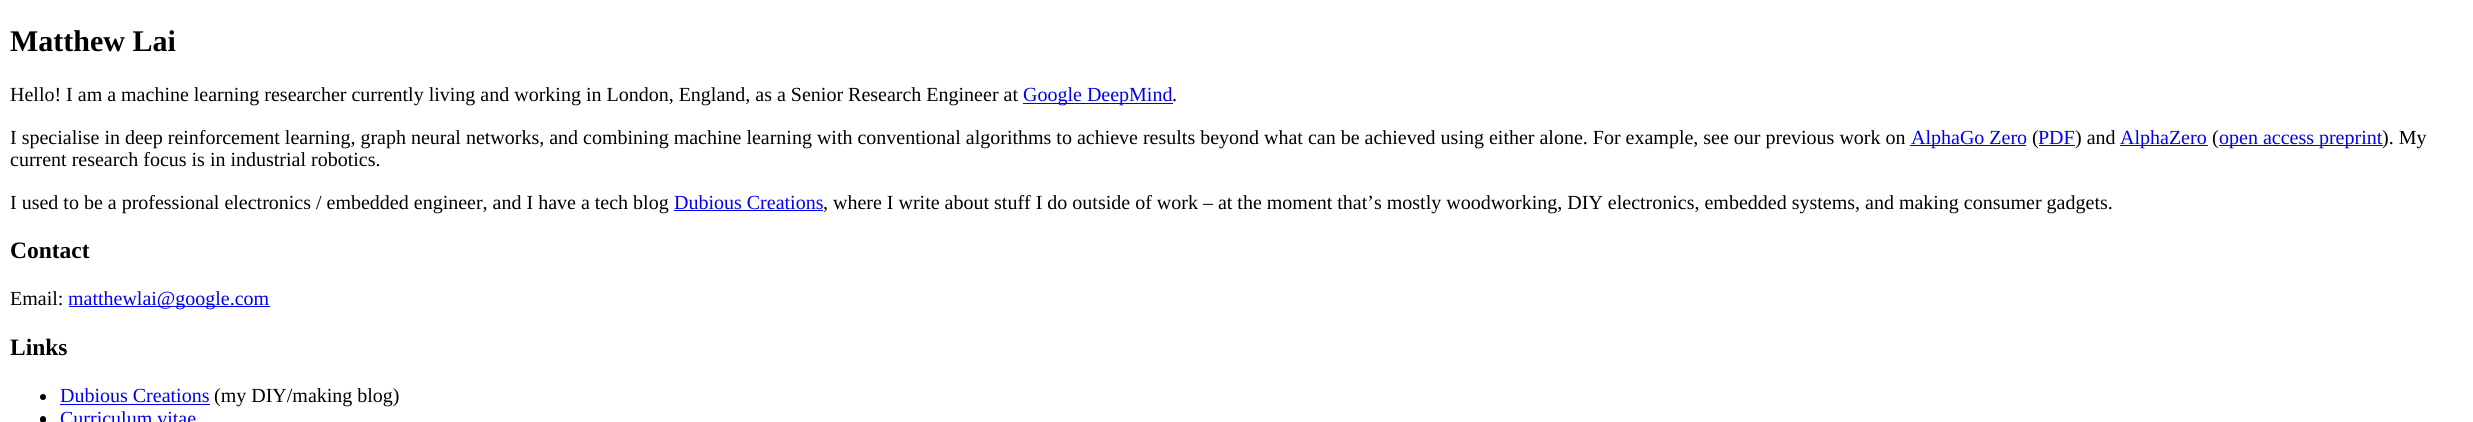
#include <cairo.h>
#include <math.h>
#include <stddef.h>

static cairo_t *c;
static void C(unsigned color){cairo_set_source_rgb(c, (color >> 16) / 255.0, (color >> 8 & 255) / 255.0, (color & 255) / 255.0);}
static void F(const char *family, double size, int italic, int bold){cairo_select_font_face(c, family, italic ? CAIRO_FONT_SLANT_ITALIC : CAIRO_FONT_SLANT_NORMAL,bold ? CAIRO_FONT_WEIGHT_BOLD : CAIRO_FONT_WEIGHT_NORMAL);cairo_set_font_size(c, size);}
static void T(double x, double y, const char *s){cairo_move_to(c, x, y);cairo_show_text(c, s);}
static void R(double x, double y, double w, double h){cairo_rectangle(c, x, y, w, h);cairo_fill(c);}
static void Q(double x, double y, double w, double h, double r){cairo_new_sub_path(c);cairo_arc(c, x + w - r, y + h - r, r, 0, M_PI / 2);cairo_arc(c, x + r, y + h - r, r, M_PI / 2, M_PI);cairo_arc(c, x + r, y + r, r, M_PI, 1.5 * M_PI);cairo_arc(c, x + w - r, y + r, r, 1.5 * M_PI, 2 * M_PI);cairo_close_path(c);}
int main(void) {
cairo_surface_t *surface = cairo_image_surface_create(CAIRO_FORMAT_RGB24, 2473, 422);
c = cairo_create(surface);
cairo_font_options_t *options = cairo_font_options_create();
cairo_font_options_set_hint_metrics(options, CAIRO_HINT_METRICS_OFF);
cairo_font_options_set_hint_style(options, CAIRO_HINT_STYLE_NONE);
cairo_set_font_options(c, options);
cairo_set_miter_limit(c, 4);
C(0xffffff);
cairo_paint(c);
F("Liberation Serif",30,0,1);
C(0x000000);
T(10,51,"Matthew Lai");
F("Liberation Serif",20,0,0);
T(10,101,"Hello! I am a machine learning researcher currently living and working in London, England, as a Senior Research Engineer at");
C(0x0000ee);
R(1023,103,150,1);
T(1023,101,"Google DeepMind");
C(0x000000);
T(1172,101,".");
T(10,144,"I specialise in deep reinforcement learning, graph neural networks, and combining machine learning with conventional algorithms to achieve results beyond what can be achieved using either alone. For example, see our previous work on");
C(0x0000ee);
R(1910,145,116,1);
T(1911,144,"AlphaGo Zero");
C(0x000000);
T(2032,144,"(");
C(0x0000ee);
T(2038,144,"PDF");
R(2039,145,36,1);
C(0x000000);
T(2075,144,") and");
C(0x0000ee);
R(2120,145,88,1);
T(2120,144,"AlphaZero");
C(0x000000);
T(2212,144,"(");
C(0x0000ee);
R(2219,145,164,1);
T(2219,144,"open access preprint");
C(0x000000);
T(2382,144,"). My");
T(10,166,"current research focus is in industrial robotics.");
T(10,209,"I used to be a professional electronics / embedded engineer, and I have a tech blog");
C(0x0000ee);
T(674,209,"Dubious Creations");
R(674,210,149,1);
C(0x000000);
T(823,209,", where I write about stuff I do outside of work – at the moment that’s mostly woodworking, DIY electronics, embedded systems, and making consumer gadgets.");
F("Liberation Serif",23.5,0,1);
T(10,258,"Contact");
F("Liberation Serif",20,0,0);
T(10,305,"Email:");
C(0x0000ee);
R(69,306,201,1);
T(68,305,"matthewlai@google.com");
F("Liberation Serif",23.5,0,1);
C(0x000000);
T(10,355,"Links");
cairo_new_path(c);
cairo_arc(c,43,397,3,0,2 * M_PI);
cairo_fill(c);
F("Liberation Serif",20,0,0);
C(0x0000ee);
T(60,402,"Dubious Creations");
R(60,404,150,1);
C(0x000000);
T(214,402,"(my DIY/making blog)");
Q(40,416,6,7,3);
cairo_fill(c);
C(0x0000ee);
T(60,425,"Curriculum vitae");
cairo_surface_write_to_png(surface, "o.png");
cairo_font_options_destroy(options);
cairo_destroy(c);
cairo_surface_destroy(surface);
return 0;
}
